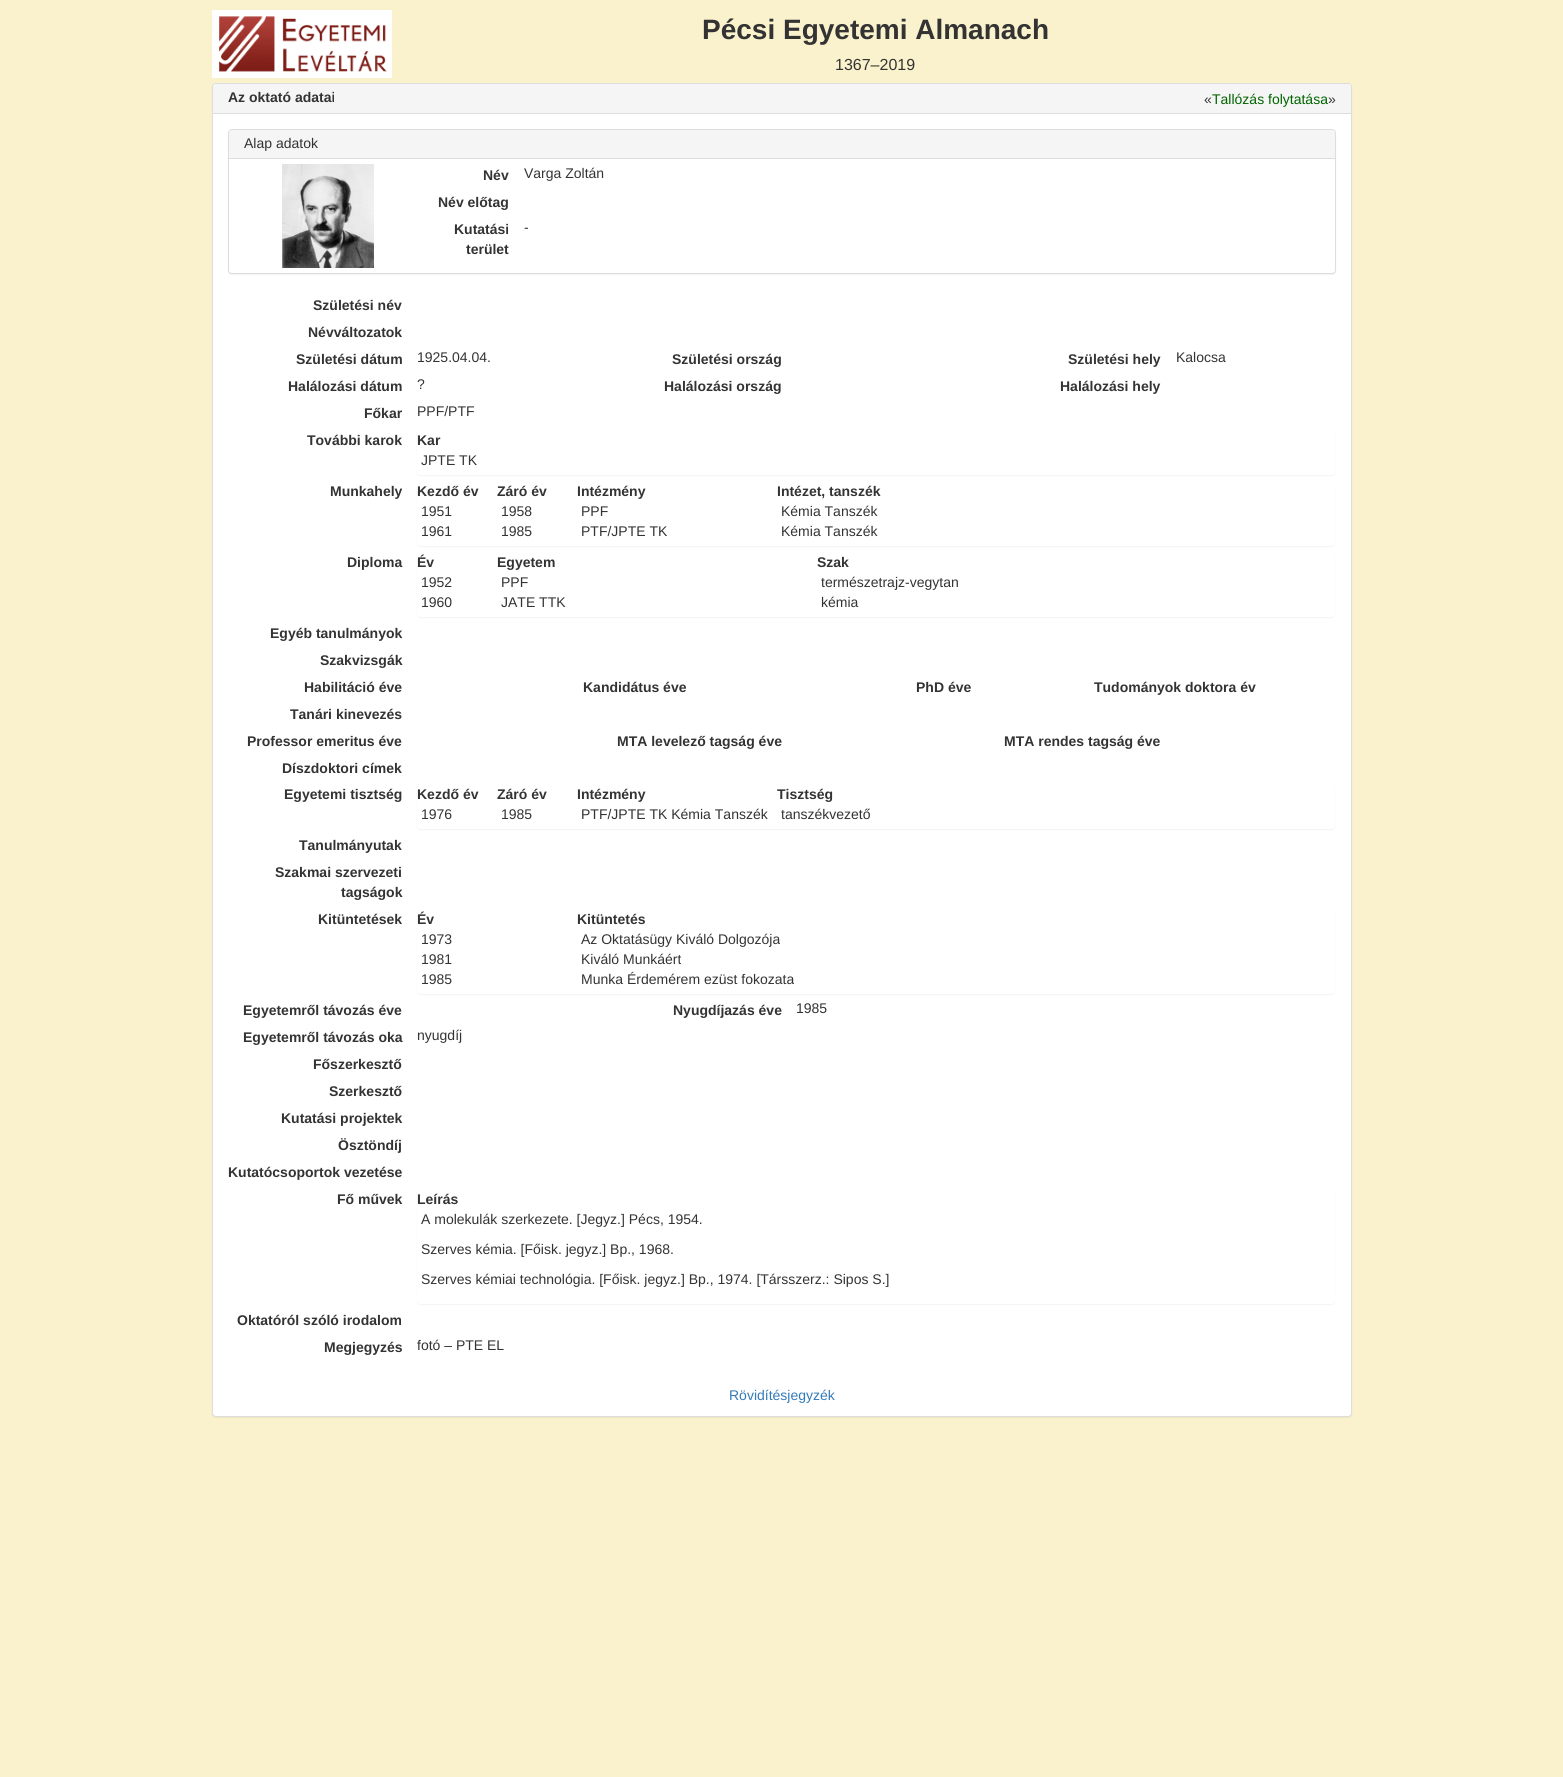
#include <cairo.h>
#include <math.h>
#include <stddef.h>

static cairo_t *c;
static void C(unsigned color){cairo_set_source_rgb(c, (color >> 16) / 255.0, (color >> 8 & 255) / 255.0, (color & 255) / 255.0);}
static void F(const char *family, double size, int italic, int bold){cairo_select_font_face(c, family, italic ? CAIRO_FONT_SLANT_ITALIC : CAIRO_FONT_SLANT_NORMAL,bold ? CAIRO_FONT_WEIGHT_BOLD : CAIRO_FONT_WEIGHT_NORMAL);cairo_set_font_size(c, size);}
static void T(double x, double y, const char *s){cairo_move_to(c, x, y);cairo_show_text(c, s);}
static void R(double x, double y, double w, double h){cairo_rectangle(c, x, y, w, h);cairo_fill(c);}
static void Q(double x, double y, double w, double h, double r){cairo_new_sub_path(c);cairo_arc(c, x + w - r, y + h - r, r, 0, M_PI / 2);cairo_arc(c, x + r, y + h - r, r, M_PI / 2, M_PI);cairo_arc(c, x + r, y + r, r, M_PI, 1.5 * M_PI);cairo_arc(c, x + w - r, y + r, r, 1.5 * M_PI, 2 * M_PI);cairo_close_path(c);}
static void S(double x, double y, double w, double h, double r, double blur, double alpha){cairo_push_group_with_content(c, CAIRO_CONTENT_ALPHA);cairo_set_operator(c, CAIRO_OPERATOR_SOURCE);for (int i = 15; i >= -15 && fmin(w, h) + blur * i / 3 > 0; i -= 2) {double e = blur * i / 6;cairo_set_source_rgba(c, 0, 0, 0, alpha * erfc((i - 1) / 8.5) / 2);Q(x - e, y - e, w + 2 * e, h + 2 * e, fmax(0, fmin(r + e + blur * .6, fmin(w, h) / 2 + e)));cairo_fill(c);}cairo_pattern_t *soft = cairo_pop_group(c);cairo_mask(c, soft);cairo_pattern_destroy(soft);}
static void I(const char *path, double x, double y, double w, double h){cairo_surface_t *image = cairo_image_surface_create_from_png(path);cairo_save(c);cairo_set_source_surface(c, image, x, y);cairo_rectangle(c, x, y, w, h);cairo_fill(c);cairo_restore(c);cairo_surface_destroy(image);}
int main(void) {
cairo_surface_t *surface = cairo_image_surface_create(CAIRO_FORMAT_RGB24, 1563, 1777);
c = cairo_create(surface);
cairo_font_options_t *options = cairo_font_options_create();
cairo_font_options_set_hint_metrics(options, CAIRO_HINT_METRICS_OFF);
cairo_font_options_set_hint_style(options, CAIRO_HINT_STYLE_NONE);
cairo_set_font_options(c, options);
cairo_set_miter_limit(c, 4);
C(0xfaf2cc);
cairo_paint(c);
I("1.png",212,10,180,68);
F("Liberation Sans",28,0,1);
C(0x333333);
T(702,39,"Pécsi Egyetemi Almanach");
F("Liberation Sans",16,0,0);
T(835,70,"1367–2019");
C(0x000000);
S(212,84,1140,1334,4,.5,.05);
C(0xffffff);
Q(212.5,83.5,1139,1333,3.5);
cairo_fill_preserve(c);
C(0xdddddd);
cairo_set_line_width(c,1);
cairo_stroke(c);
C(0xf5f5f5);
cairo_new_path(c);
cairo_move_to(c,216,84);
cairo_line_to(c,1348,84);
cairo_curve_to(c,1349.5,84,1351,85.5,1351,87);
cairo_line_to(c,1351,114);
cairo_line_to(c,213,114);
cairo_line_to(c,213,87);
cairo_curve_to(c,213,85.5,214.5,84,216,84);
cairo_close_path(c);
cairo_fill(c);
C(0xdddddd);
R(213,113,1138,1);
F("Liberation Sans",14,0,1);
C(0x333333);
T(228,102,"Az oktató adatai");
F("Liberation Sans",14,0,0);
T(1204,104,"«");
C(0x006400);
T(1212,104,"Tallózás folytatása");
C(0x333333);
T(1328,104,"»");
C(0x000000);
S(228,130,1108,145,4,.5,.05);
C(0xffffff);
Q(228.5,129.5,1107,144,3.5);
cairo_fill_preserve(c);
C(0xdddddd);
cairo_stroke(c);
C(0xf5f5f5);
cairo_new_path(c);
cairo_move_to(c,232,130);
cairo_line_to(c,1332,130);
cairo_curve_to(c,1333.5,130,1335,131.5,1335,133);
cairo_line_to(c,1335,159);
cairo_line_to(c,229,159);
cairo_line_to(c,229,133);
cairo_curve_to(c,229,131.5,230.5,130,232,130);
cairo_close_path(c);
cairo_fill(c);
C(0xdddddd);
R(229,158,1106,1);
C(0x333333);
T(244,148,"Alap adatok");
I("2.png",282,164,92,104);
F("Liberation Sans",14,0,1);
T(483,180,"Név");
F("Liberation Sans",14,0,0);
T(524,178,"Varga Zoltán");
F("Liberation Sans",14,0,1);
T(438,207,"Név előtag");
T(454,234,"Kutatási");
T(466,254,"terület");
F("Liberation Sans",14,0,0);
T(524,232,"-");
F("Liberation Sans",14,0,1);
T(313,310,"Születési név");
T(308,337,"Névváltozatok");
T(296,364,"Születési dátum");
F("Liberation Sans",14,0,0);
T(417,362,"1925.04.04.");
F("Liberation Sans",14,0,1);
T(672,364,"Születési ország");
T(1068,364,"Születési hely");
F("Liberation Sans",14,0,0);
T(1176,362,"Kalocsa");
F("Liberation Sans",14,0,1);
T(288,391,"Halálozási dátum");
F("Liberation Sans",14,0,0);
T(417,389,"?");
F("Liberation Sans",14,0,1);
T(664,391,"Halálozási ország");
T(1060,391,"Halálozási hely");
T(364,418,"Főkar");
F("Liberation Sans",14,0,0);
T(417,416,"PPF/PTF");
F("Liberation Sans",14,0,1);
T(307,445,"További karok");
cairo_save(c);
cairo_set_fill_rule(c,CAIRO_FILL_RULE_EVEN_ODD);
cairo_new_path(c);
cairo_move_to(c,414,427);
cairo_line_to(c,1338,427);
cairo_line_to(c,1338,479);
cairo_line_to(c,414,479);
cairo_close_path(c);
cairo_move_to(c,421,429);
cairo_line_to(c,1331,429);
cairo_curve_to(c,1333,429,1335,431,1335,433);
cairo_line_to(c,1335,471);
cairo_curve_to(c,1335,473,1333,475,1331,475);
cairo_line_to(c,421,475);
cairo_curve_to(c,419,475,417,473,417,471);
cairo_line_to(c,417,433);
cairo_curve_to(c,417,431,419,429,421,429);
cairo_close_path(c);
cairo_clip(c);
C(0x000000);
S(417,430,918,46,4,.5,.05);
cairo_restore(c);
T(417,445,"Kar");
F("Liberation Sans",14,0,0);
T(421,465,"JPTE TK");
F("Liberation Sans",14,0,1);
T(330,496,"Munkahely");
cairo_save(c);
cairo_set_fill_rule(c,CAIRO_FILL_RULE_EVEN_ODD);
cairo_new_path(c);
cairo_move_to(c,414,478);
cairo_line_to(c,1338,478);
cairo_line_to(c,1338,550);
cairo_line_to(c,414,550);
cairo_close_path(c);
cairo_move_to(c,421,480);
cairo_line_to(c,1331,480);
cairo_curve_to(c,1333,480,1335,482,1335,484);
cairo_line_to(c,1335,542);
cairo_curve_to(c,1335,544,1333,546,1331,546);
cairo_line_to(c,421,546);
cairo_curve_to(c,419,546,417,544,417,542);
cairo_line_to(c,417,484);
cairo_curve_to(c,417,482,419,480,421,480);
cairo_close_path(c);
cairo_clip(c);
C(0x000000);
S(417,481,918,66,4,.5,.05);
cairo_restore(c);
T(417,496,"Kezdő év");
T(497,496,"Záró év");
T(577,496,"Intézmény");
T(777,496,"Intézet, tanszék");
F("Liberation Sans",14,0,0);
T(421,516,"1951");
T(501,516,"1958");
T(581,516,"PPF");
T(781,516,"Kémia Tanszék");
T(421,536,"1961");
T(501,536,"1985");
T(581,536,"PTF/JPTE TK");
T(781,536,"Kémia Tanszék");
F("Liberation Sans",14,0,1);
T(347,567,"Diploma");
cairo_save(c);
cairo_set_fill_rule(c,CAIRO_FILL_RULE_EVEN_ODD);
cairo_new_path(c);
cairo_move_to(c,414,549);
cairo_line_to(c,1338,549);
cairo_line_to(c,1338,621);
cairo_line_to(c,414,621);
cairo_close_path(c);
cairo_move_to(c,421,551);
cairo_line_to(c,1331,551);
cairo_curve_to(c,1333,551,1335,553,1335,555);
cairo_line_to(c,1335,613);
cairo_curve_to(c,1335,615,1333,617,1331,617);
cairo_line_to(c,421,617);
cairo_curve_to(c,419,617,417,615,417,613);
cairo_line_to(c,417,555);
cairo_curve_to(c,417,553,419,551,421,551);
cairo_close_path(c);
cairo_clip(c);
C(0x000000);
S(417,552,918,66,4,.5,.05);
cairo_restore(c);
T(417,567,"Év");
T(497,567,"Egyetem");
T(817,567,"Szak");
F("Liberation Sans",14,0,0);
T(421,587,"1952");
T(501,587,"PPF");
T(821,587,"természetrajz-vegytan");
T(421,607,"1960");
T(501,607,"JATE TTK");
T(821,607,"kémia");
F("Liberation Sans",14,0,1);
T(270,638,"Egyéb tanulmányok");
T(320,665,"Szakvizsgák");
T(304,692,"Habilitáció éve");
T(583,692,"Kandidátus éve");
T(916,692,"PhD éve");
T(1094,692,"Tudományok doktora év");
T(290,719,"Tanári kinevezés");
T(247,746,"Professor emeritus éve");
T(617,746,"MTA levelező tagság éve");
T(1004,746,"MTA rendes tagság éve");
T(282,773,"Díszdoktori címek");
T(284,799,"Egyetemi tisztség");
cairo_save(c);
cairo_set_fill_rule(c,CAIRO_FILL_RULE_EVEN_ODD);
cairo_new_path(c);
cairo_move_to(c,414,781);
cairo_line_to(c,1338,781);
cairo_line_to(c,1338,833);
cairo_line_to(c,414,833);
cairo_close_path(c);
cairo_move_to(c,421,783);
cairo_line_to(c,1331,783);
cairo_curve_to(c,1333,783,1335,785,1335,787);
cairo_line_to(c,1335,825);
cairo_curve_to(c,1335,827,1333,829,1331,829);
cairo_line_to(c,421,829);
cairo_curve_to(c,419,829,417,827,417,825);
cairo_line_to(c,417,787);
cairo_curve_to(c,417,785,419,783,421,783);
cairo_close_path(c);
cairo_clip(c);
C(0x000000);
S(417,784,918,46,4,.5,.05);
cairo_restore(c);
T(417,799,"Kezdő év");
T(497,799,"Záró év");
T(577,799,"Intézmény");
T(777,799,"Tisztség");
F("Liberation Sans",14,0,0);
T(421,819,"1976");
T(501,819,"1985");
T(581,819,"PTF/JPTE TK Kémia Tanszék");
T(781,819,"tanszékvezető");
F("Liberation Sans",14,0,1);
T(299,850,"Tanulmányutak");
T(275,877,"Szakmai szervezeti");
T(341,897,"tagságok");
T(318,924,"Kitüntetések");
cairo_save(c);
cairo_set_fill_rule(c,CAIRO_FILL_RULE_EVEN_ODD);
cairo_new_path(c);
cairo_move_to(c,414,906);
cairo_line_to(c,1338,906);
cairo_line_to(c,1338,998);
cairo_line_to(c,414,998);
cairo_close_path(c);
cairo_move_to(c,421,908);
cairo_line_to(c,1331,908);
cairo_curve_to(c,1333,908,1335,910,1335,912);
cairo_line_to(c,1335,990);
cairo_curve_to(c,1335,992,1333,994,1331,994);
cairo_line_to(c,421,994);
cairo_curve_to(c,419,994,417,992,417,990);
cairo_line_to(c,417,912);
cairo_curve_to(c,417,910,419,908,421,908);
cairo_close_path(c);
cairo_clip(c);
C(0x000000);
S(417,909,918,86,4,.5,.05);
cairo_restore(c);
T(417,924,"Év");
T(577,924,"Kitüntetés");
F("Liberation Sans",14,0,0);
T(421,944,"1973");
T(581,944,"Az Oktatásügy Kiváló Dolgozója");
T(421,964,"1981");
T(581,964,"Kiváló Munkáért");
T(421,984,"1985");
T(581,984,"Munka Érdemérem ezüst fokozata");
F("Liberation Sans",14,0,1);
T(243,1015,"Egyetemről távozás éve");
T(673,1015,"Nyugdíjazás éve");
F("Liberation Sans",14,0,0);
T(796,1013,"1985");
F("Liberation Sans",14,0,1);
T(243,1042,"Egyetemről távozás oka");
F("Liberation Sans",14,0,0);
T(417,1040,"nyugdíj");
F("Liberation Sans",14,0,1);
T(313,1069,"Főszerkesztő");
T(329,1096,"Szerkesztő");
T(281,1123,"Kutatási projektek");
T(338,1150,"Ösztöndíj");
T(228,1177,"Kutatócsoportok vezetése");
T(337,1204,"Fő művek");
cairo_save(c);
cairo_set_fill_rule(c,CAIRO_FILL_RULE_EVEN_ODD);
cairo_new_path(c);
cairo_move_to(c,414,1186);
cairo_line_to(c,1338,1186);
cairo_line_to(c,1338,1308);
cairo_line_to(c,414,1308);
cairo_close_path(c);
cairo_move_to(c,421,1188);
cairo_line_to(c,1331,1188);
cairo_curve_to(c,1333,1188,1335,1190,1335,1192);
cairo_line_to(c,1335,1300);
cairo_curve_to(c,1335,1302,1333,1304,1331,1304);
cairo_line_to(c,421,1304);
cairo_curve_to(c,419,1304,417,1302,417,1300);
cairo_line_to(c,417,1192);
cairo_curve_to(c,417,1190,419,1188,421,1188);
cairo_close_path(c);
cairo_clip(c);
C(0x000000);
S(417,1189,918,116,4,.5,.05);
cairo_restore(c);
T(417,1204,"Leírás");
F("Liberation Sans",14,0,0);
T(421,1224,"A molekulák szerkezete. [Jegyz.] Pécs, 1954.");
T(421,1254,"Szerves kémia. [Főisk. jegyz.] Bp., 1968.");
T(421,1284,"Szerves kémiai technológia. [Főisk. jegyz.] Bp., 1974. [Társszerz.: Sipos S.]");
F("Liberation Sans",14,0,1);
T(237,1325,"Oktatóról szóló irodalom");
T(324,1352,"Megjegyzés");
F("Liberation Sans",14,0,0);
T(417,1350,"fotó – PTE EL");
C(0x337ab7);
T(729,1400,"Rövidítésjegyzék");
cairo_surface_write_to_png(surface, "o.png");
cairo_font_options_destroy(options);
cairo_destroy(c);
cairo_surface_destroy(surface);
return 0;
}
